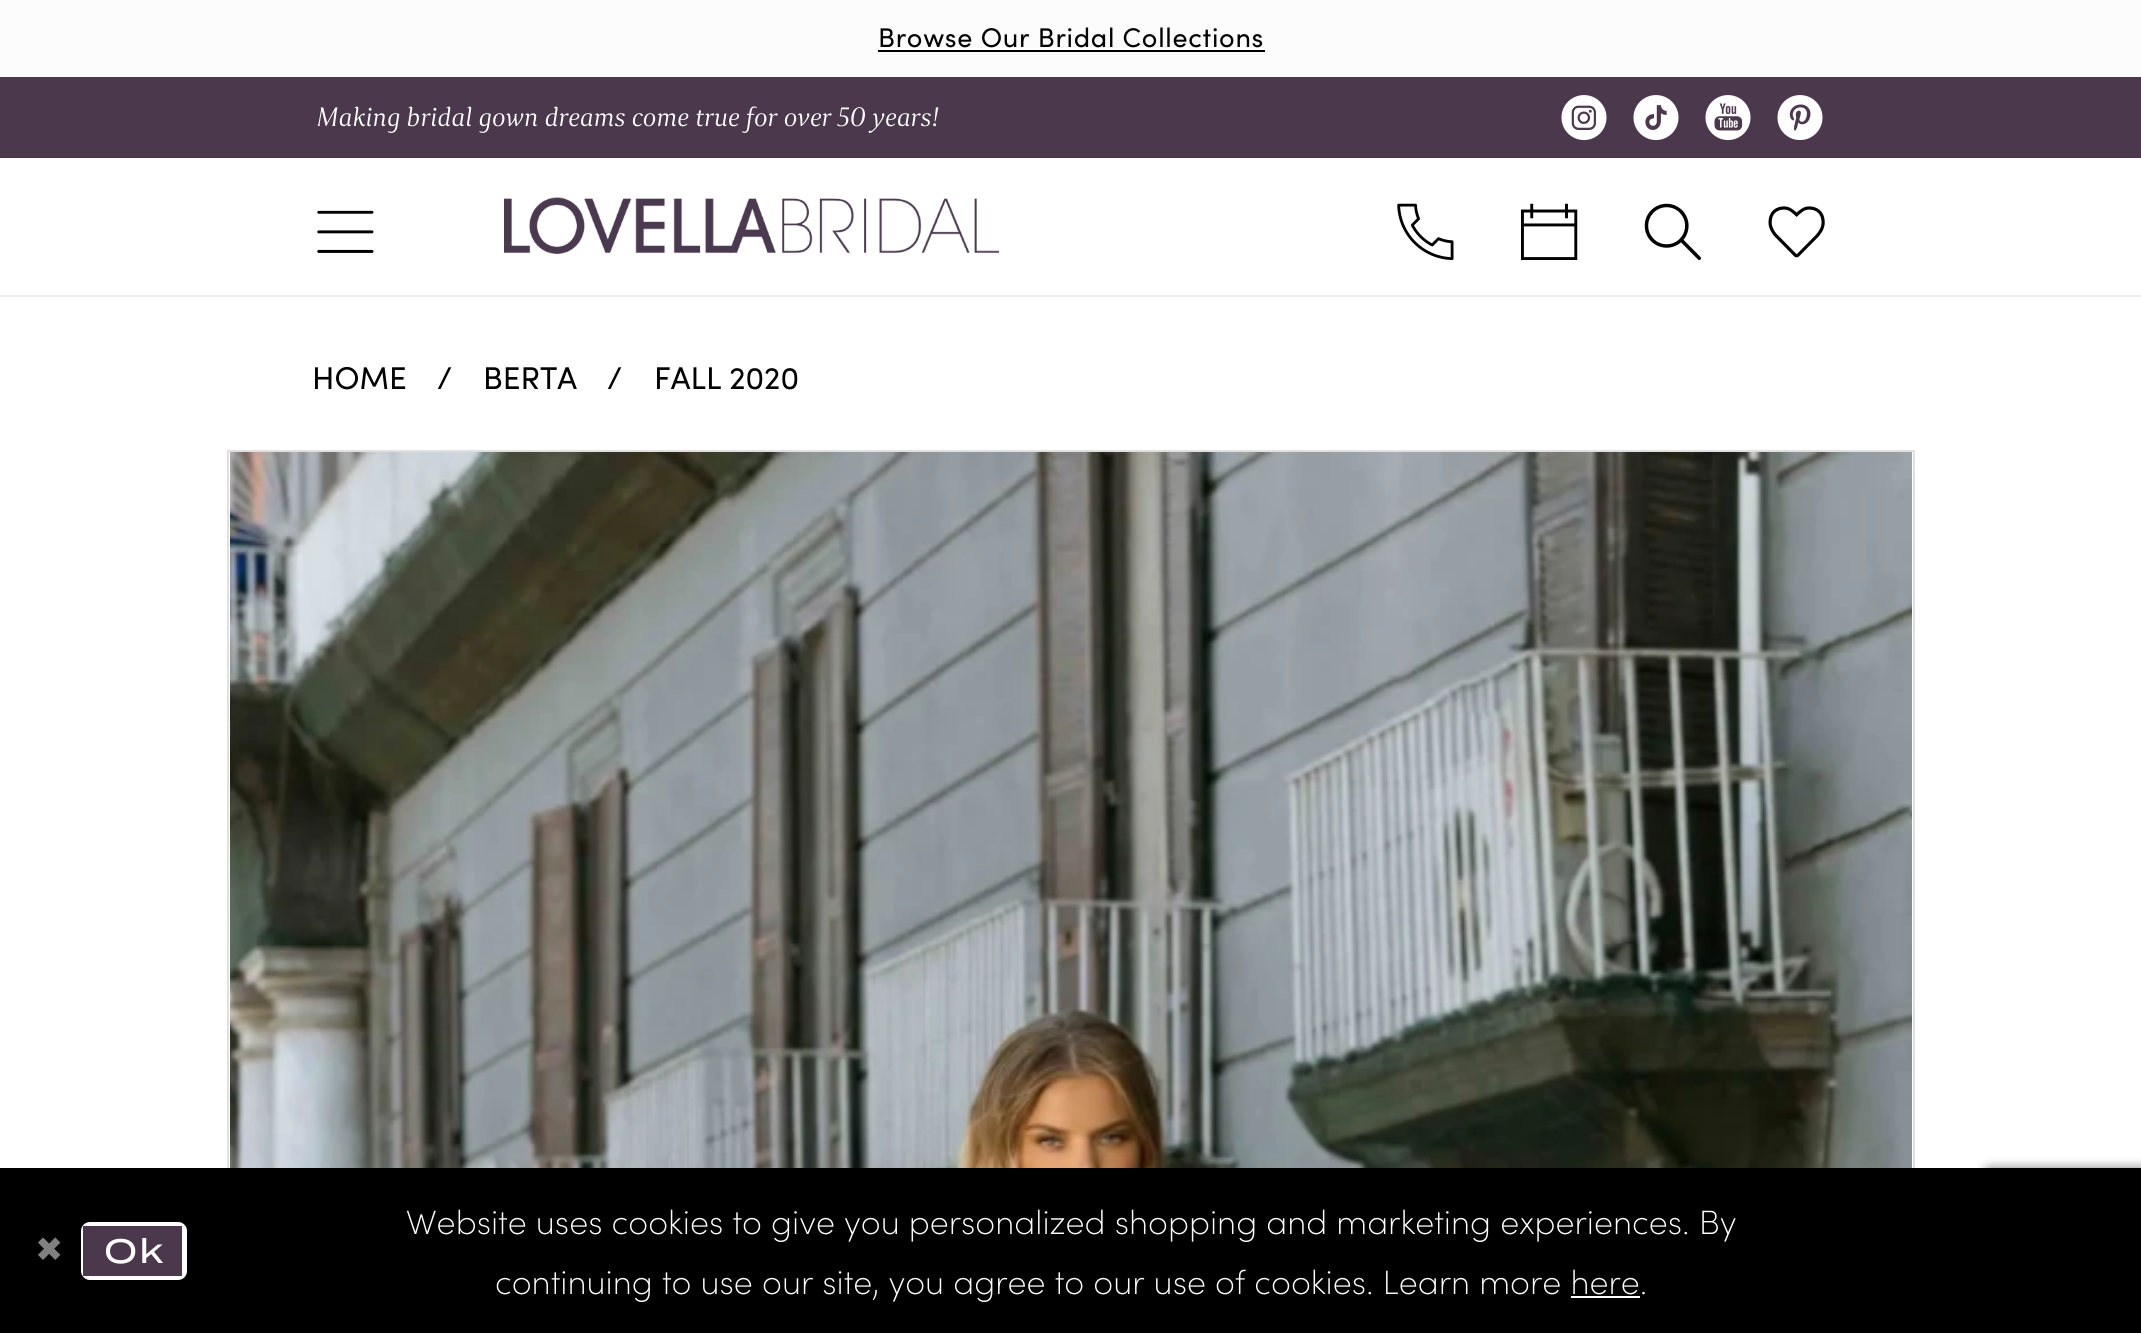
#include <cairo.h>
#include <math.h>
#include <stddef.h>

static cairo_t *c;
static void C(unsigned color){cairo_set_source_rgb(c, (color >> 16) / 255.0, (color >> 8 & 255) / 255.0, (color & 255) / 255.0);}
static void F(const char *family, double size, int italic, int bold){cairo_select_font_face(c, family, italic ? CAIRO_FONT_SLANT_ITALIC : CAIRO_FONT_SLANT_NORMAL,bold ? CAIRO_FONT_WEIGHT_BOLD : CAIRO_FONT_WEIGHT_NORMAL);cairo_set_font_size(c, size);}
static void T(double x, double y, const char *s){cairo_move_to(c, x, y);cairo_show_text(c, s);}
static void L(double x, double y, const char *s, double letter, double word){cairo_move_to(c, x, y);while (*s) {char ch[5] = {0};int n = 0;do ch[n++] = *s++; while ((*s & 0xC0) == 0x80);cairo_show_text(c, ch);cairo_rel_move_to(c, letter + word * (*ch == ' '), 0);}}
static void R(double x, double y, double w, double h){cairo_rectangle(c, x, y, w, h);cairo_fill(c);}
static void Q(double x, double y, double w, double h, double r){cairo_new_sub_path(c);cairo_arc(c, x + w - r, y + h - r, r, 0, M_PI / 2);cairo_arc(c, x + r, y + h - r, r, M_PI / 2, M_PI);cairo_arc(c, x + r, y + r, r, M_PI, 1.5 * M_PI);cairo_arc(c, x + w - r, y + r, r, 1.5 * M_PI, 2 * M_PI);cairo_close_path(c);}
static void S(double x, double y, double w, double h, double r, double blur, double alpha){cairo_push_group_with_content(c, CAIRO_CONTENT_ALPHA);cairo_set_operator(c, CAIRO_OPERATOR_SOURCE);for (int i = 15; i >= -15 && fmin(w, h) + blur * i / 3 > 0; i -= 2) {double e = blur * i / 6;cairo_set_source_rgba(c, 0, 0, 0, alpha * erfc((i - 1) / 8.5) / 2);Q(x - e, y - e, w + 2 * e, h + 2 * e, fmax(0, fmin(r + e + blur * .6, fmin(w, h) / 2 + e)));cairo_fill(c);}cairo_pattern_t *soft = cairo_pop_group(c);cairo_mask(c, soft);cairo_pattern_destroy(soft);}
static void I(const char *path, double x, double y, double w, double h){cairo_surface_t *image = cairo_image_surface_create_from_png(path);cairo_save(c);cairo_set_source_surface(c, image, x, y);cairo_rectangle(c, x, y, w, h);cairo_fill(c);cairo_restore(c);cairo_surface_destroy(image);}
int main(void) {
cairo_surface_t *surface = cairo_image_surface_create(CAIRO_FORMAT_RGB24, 2141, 1333);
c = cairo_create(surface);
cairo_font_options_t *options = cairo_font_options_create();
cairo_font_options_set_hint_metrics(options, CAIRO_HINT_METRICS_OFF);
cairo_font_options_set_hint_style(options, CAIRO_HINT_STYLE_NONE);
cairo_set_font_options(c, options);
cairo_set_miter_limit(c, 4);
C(0xffffff);
cairo_paint(c);
C(0xfcfcfc);
R(0,0,2141,77);
F("Sofia",27,0,0);
C(0x000000);
L(878,47,"Browse Our Bridal Collections",.7,0);
R(878,50,387,2);
C(0x4b384c);
R(0,77,2141,81);
F("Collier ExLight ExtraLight",29.25,1,0);
C(0xffffff);
L(317,126,"Making bridal gown dreams come true for over 50 years!",.55,0);
I("1.png",1561,95,46,46);
I("2.png",1633,95,46,46);
I("3.png",1705,95,46,46);
I("4.png",1777,95,46,46);
I("5.png",317,210,57,43);
I("6.png",504,197,495,57);
I("7.png",1397,203,57,57);
I("8.png",1521,203,57,57);
I("9.png",1644,203,57,57);
I("10.png",1768,206,57,52);
C(0xededed);
R(0,295,2141,2);
F("Sofia",31.5,0,0);
C(0x000000);
T(312,389,"HOME");
T(437,389,"/");
T(483,389,"BERTA");
T(607,389,"/");
T(654,389,"FALL 2020");
cairo_rectangle(c,228,451,1686,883);
C(0xe0e0e0);
cairo_stroke(c);
I("11.png",230,452,1682,716);
C(0x808080);
S(1985,1168,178,135,5,5.5,1);
C(0x000000);
R(0,1168,2141,165);
F("DejaVu Sans",33.75,0,0);
C(0x808080);
L(35,1261,"✖",2,0);
C(0xffffff);
Q(81,1222,106,58,9);
cairo_fill(c);
C(0x4b384c);
R(83,1226,99,50);
F("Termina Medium",33.75,0,0);
C(0xffffff);
L(104,1263,"Ok",2,0);
F("Sofia ExtraLight",33.75,0,0);
T(406,1234,"Website uses cookies to give you personalized shopping and marketing experiences. By");
T(495,1294,"continuing to use our site, you agree to our use of cookies. Learn more here.");
R(1571,1296,69,2);
cairo_surface_write_to_png(surface, "o.png");
cairo_font_options_destroy(options);
cairo_destroy(c);
cairo_surface_destroy(surface);
return 0;
}
